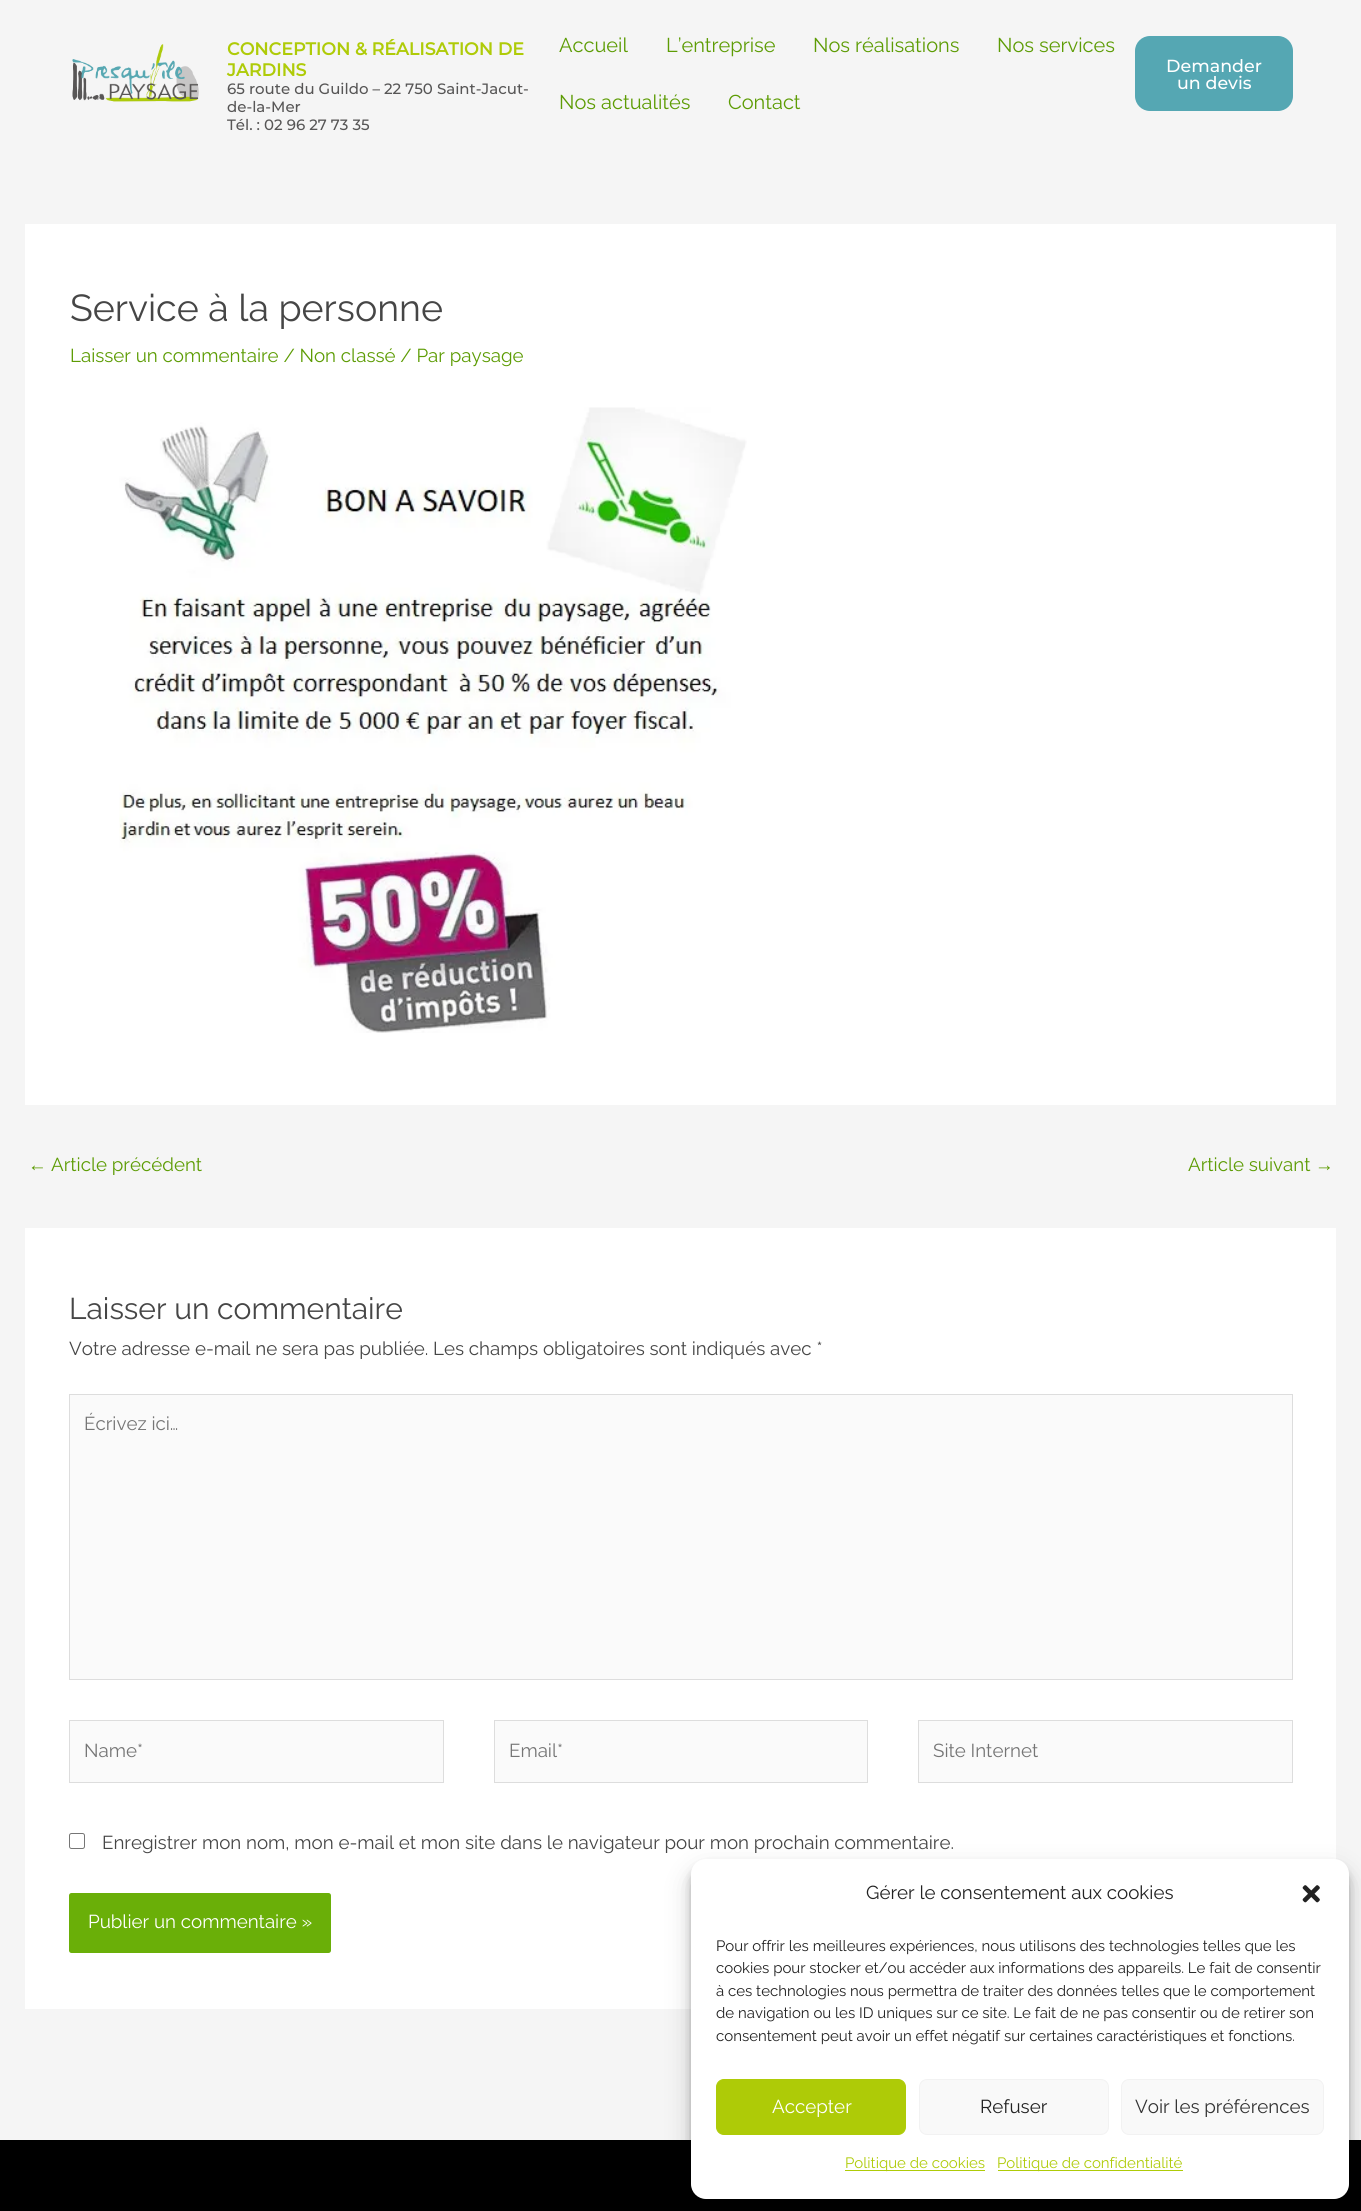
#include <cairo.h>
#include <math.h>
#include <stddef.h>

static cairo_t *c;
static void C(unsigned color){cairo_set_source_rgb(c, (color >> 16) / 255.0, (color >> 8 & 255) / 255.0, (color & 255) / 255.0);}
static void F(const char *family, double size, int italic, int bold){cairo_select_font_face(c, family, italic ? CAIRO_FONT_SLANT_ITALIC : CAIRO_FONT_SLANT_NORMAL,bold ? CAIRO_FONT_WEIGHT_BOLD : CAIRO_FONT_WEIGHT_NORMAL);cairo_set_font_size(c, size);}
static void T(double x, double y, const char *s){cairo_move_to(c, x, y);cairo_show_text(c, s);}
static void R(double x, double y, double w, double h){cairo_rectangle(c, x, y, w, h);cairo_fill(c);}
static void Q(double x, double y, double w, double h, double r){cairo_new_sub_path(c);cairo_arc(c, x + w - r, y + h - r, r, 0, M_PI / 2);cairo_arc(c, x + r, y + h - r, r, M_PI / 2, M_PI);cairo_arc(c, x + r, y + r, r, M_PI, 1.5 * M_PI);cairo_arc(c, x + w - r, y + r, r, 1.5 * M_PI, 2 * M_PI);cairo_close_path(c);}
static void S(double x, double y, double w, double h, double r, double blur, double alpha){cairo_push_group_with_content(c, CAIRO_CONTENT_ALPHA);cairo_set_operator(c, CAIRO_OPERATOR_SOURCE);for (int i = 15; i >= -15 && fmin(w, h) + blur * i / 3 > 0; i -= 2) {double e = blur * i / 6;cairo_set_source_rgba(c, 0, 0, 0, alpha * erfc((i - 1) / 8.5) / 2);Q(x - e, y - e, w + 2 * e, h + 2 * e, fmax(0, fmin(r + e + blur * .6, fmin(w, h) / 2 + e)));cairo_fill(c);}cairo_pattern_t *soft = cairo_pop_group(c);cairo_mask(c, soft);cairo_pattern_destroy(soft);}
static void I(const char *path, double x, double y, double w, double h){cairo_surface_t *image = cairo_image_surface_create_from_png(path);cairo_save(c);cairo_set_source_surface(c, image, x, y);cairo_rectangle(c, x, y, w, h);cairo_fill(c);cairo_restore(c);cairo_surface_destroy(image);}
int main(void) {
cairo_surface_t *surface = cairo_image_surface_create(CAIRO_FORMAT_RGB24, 1361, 2211);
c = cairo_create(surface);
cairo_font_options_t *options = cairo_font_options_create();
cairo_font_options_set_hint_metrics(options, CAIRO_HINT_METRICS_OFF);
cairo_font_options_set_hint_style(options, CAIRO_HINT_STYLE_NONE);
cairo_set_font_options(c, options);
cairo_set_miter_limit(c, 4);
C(0xf5f5f5);
cairo_paint(c);
I("1.png",72,44,127,58);
F("Montserrat",17.5,0,1);
C(0xafcb08);
T(227,55,"CONCEPTION & RÉALISATION DE");
T(227,76,"JARDINS");
F("Montserrat Medium",15,0,0);
C(0x575656);
T(227,94,"65 route du Guildo – 22 750 Saint-Jacut-");
T(227,112,"de-la-Mer");
T(227,130,"Tél. : 02 96 27 73 35");
F("Raleway",20,0,0);
C(0x5d9c04);
T(559,52,"Accueil");
T(666,52,"L’entreprise");
T(813,52,"Nos réalisations");
T(997,52,"Nos services");
T(559,109,"Nos actualités");
T(728,109,"Contact");
C(0x55a7b3);
Q(1135,36,158,75,15);
cairo_fill(c);
F("Montserrat Medium",17.5,0,0);
C(0xffffff);
T(1166,72,"Demander");
T(1177,89,"un devis");
R(25,224,1311,881);
F("Raleway",37.5,0,0);
C(0x464646);
T(70,321,"Service à la personne");
F("Raleway",18.75,0,0);
C(0x5d9c04);
T(70,362,"Laisser un commentaire / Non classé / Par paysage");
I("2.png",119,407,628,626);
F("Liberation Sans",18.75,0,0);
T(28,1171,"←");
F("Raleway",18.75,0,0);
T(51,1171,"Article précédent");
T(1188,1171,"Article suivant");
F("Liberation Sans",18.75,0,0);
T(1315,1171,"→");
C(0xffffff);
R(25,1228,1311,781);
F("Raleway",30,0,0);
C(0x464646);
T(69,1319,"Laisser un commentaire");
F("Raleway",18.75,0,0);
T(69,1355,"Votre adresse e-mail ne sera pas publiée. Les champs obligatoires sont indiqués avec *");
C(0xfafafa);
cairo_rectangle(c,69.5,1394.5,1223,285);
cairo_fill_preserve(c);
C(0xdddddd);
cairo_set_line_width(c,1);
cairo_stroke(c);
C(0x757575);
T(84,1430,"Écrivez ici…");
C(0xfafafa);
cairo_rectangle(c,69.5,1720.5,374,62);
cairo_fill_preserve(c);
C(0xdddddd);
cairo_stroke(c);
C(0x757575);
T(84,1757,"Name*");
C(0xfafafa);
cairo_rectangle(c,494.5,1720.5,373,62);
cairo_fill_preserve(c);
C(0xdddddd);
cairo_stroke(c);
C(0x757575);
T(509,1757,"Email*");
C(0xfafafa);
cairo_rectangle(c,918.5,1720.5,374,62);
cairo_fill_preserve(c);
C(0xdddddd);
cairo_stroke(c);
C(0x757575);
T(933,1757,"Site Internet");
Q(69.5,1833.5,15,15,2);
C(0x767676);
cairo_stroke(c);
C(0x464646);
T(102,1849,"Enregistrer mon nom, mon e-mail et mon site dans le navigateur pour mon prochain commentaire.");
C(0x6aaf08);
Q(69,1893,262,60,2.5);
cairo_fill(c);
C(0xffffff);
T(88,1928,"Publier un commentaire »");
C(0x000000);
R(0,2140,1361,71);
C(0x000000);
S(691,1866,658,340,15,4,.23);
S(691,1871,658,340,15,12.5,.19);
C(0xffffff);
Q(691,1859,658,340,15);
cairo_fill(c);
C(0x222222);
T(866,1899,"Gérer le consentement aux cookies");
I("3.png",1302,1885,18,18);
F("Raleway",15,0,0);
T(716,1951,"Pour offrir les meilleures expériences, nous utilisons des technologies telles que les");
T(716,1973,"cookies pour stocker et/ou accéder aux informations des appareils. Le fait de consentir");
T(716,1996,"à ces technologies nous permettra de traiter des données telles que le comportement");
T(716,2018,"de navigation ou les ID uniques sur ce site. Le fait de ne pas consentir ou de retirer son");
T(716,2041,"consentement peut avoir un effet négatif sur certaines caractéristiques et fonctions.");
C(0xaecb07);
Q(716.5,2079.5,189,55,7.5);
cairo_fill_preserve(c);
cairo_stroke(c);
F("Raleway",18.75,0,0);
C(0xffffff);
T(772,2113,"Accepter");
C(0xf9f9f9);
Q(919.5,2079.5,189,55,7.5);
cairo_fill_preserve(c);
C(0xf2f2f2);
cairo_stroke(c);
C(0x222222);
T(980,2113,"Refuser");
C(0xf9f9f9);
Q(1121.5,2079.5,202,55,7.5);
cairo_fill_preserve(c);
C(0xf2f2f2);
cairo_stroke(c);
C(0x333333);
T(1135,2113,"Voir les préférences");
C(0xaecb07);
R(845,2170,140,1);
F("Raleway",15,0,0);
C(0xafcb08);
T(845,2168,"Politique de cookies");
C(0xaecb07);
R(998,2170,185,1);
C(0xafcb08);
T(997,2168,"Politique de confidentialité");
cairo_surface_write_to_png(surface, "o.png");
cairo_font_options_destroy(options);
cairo_destroy(c);
cairo_surface_destroy(surface);
return 0;
}
